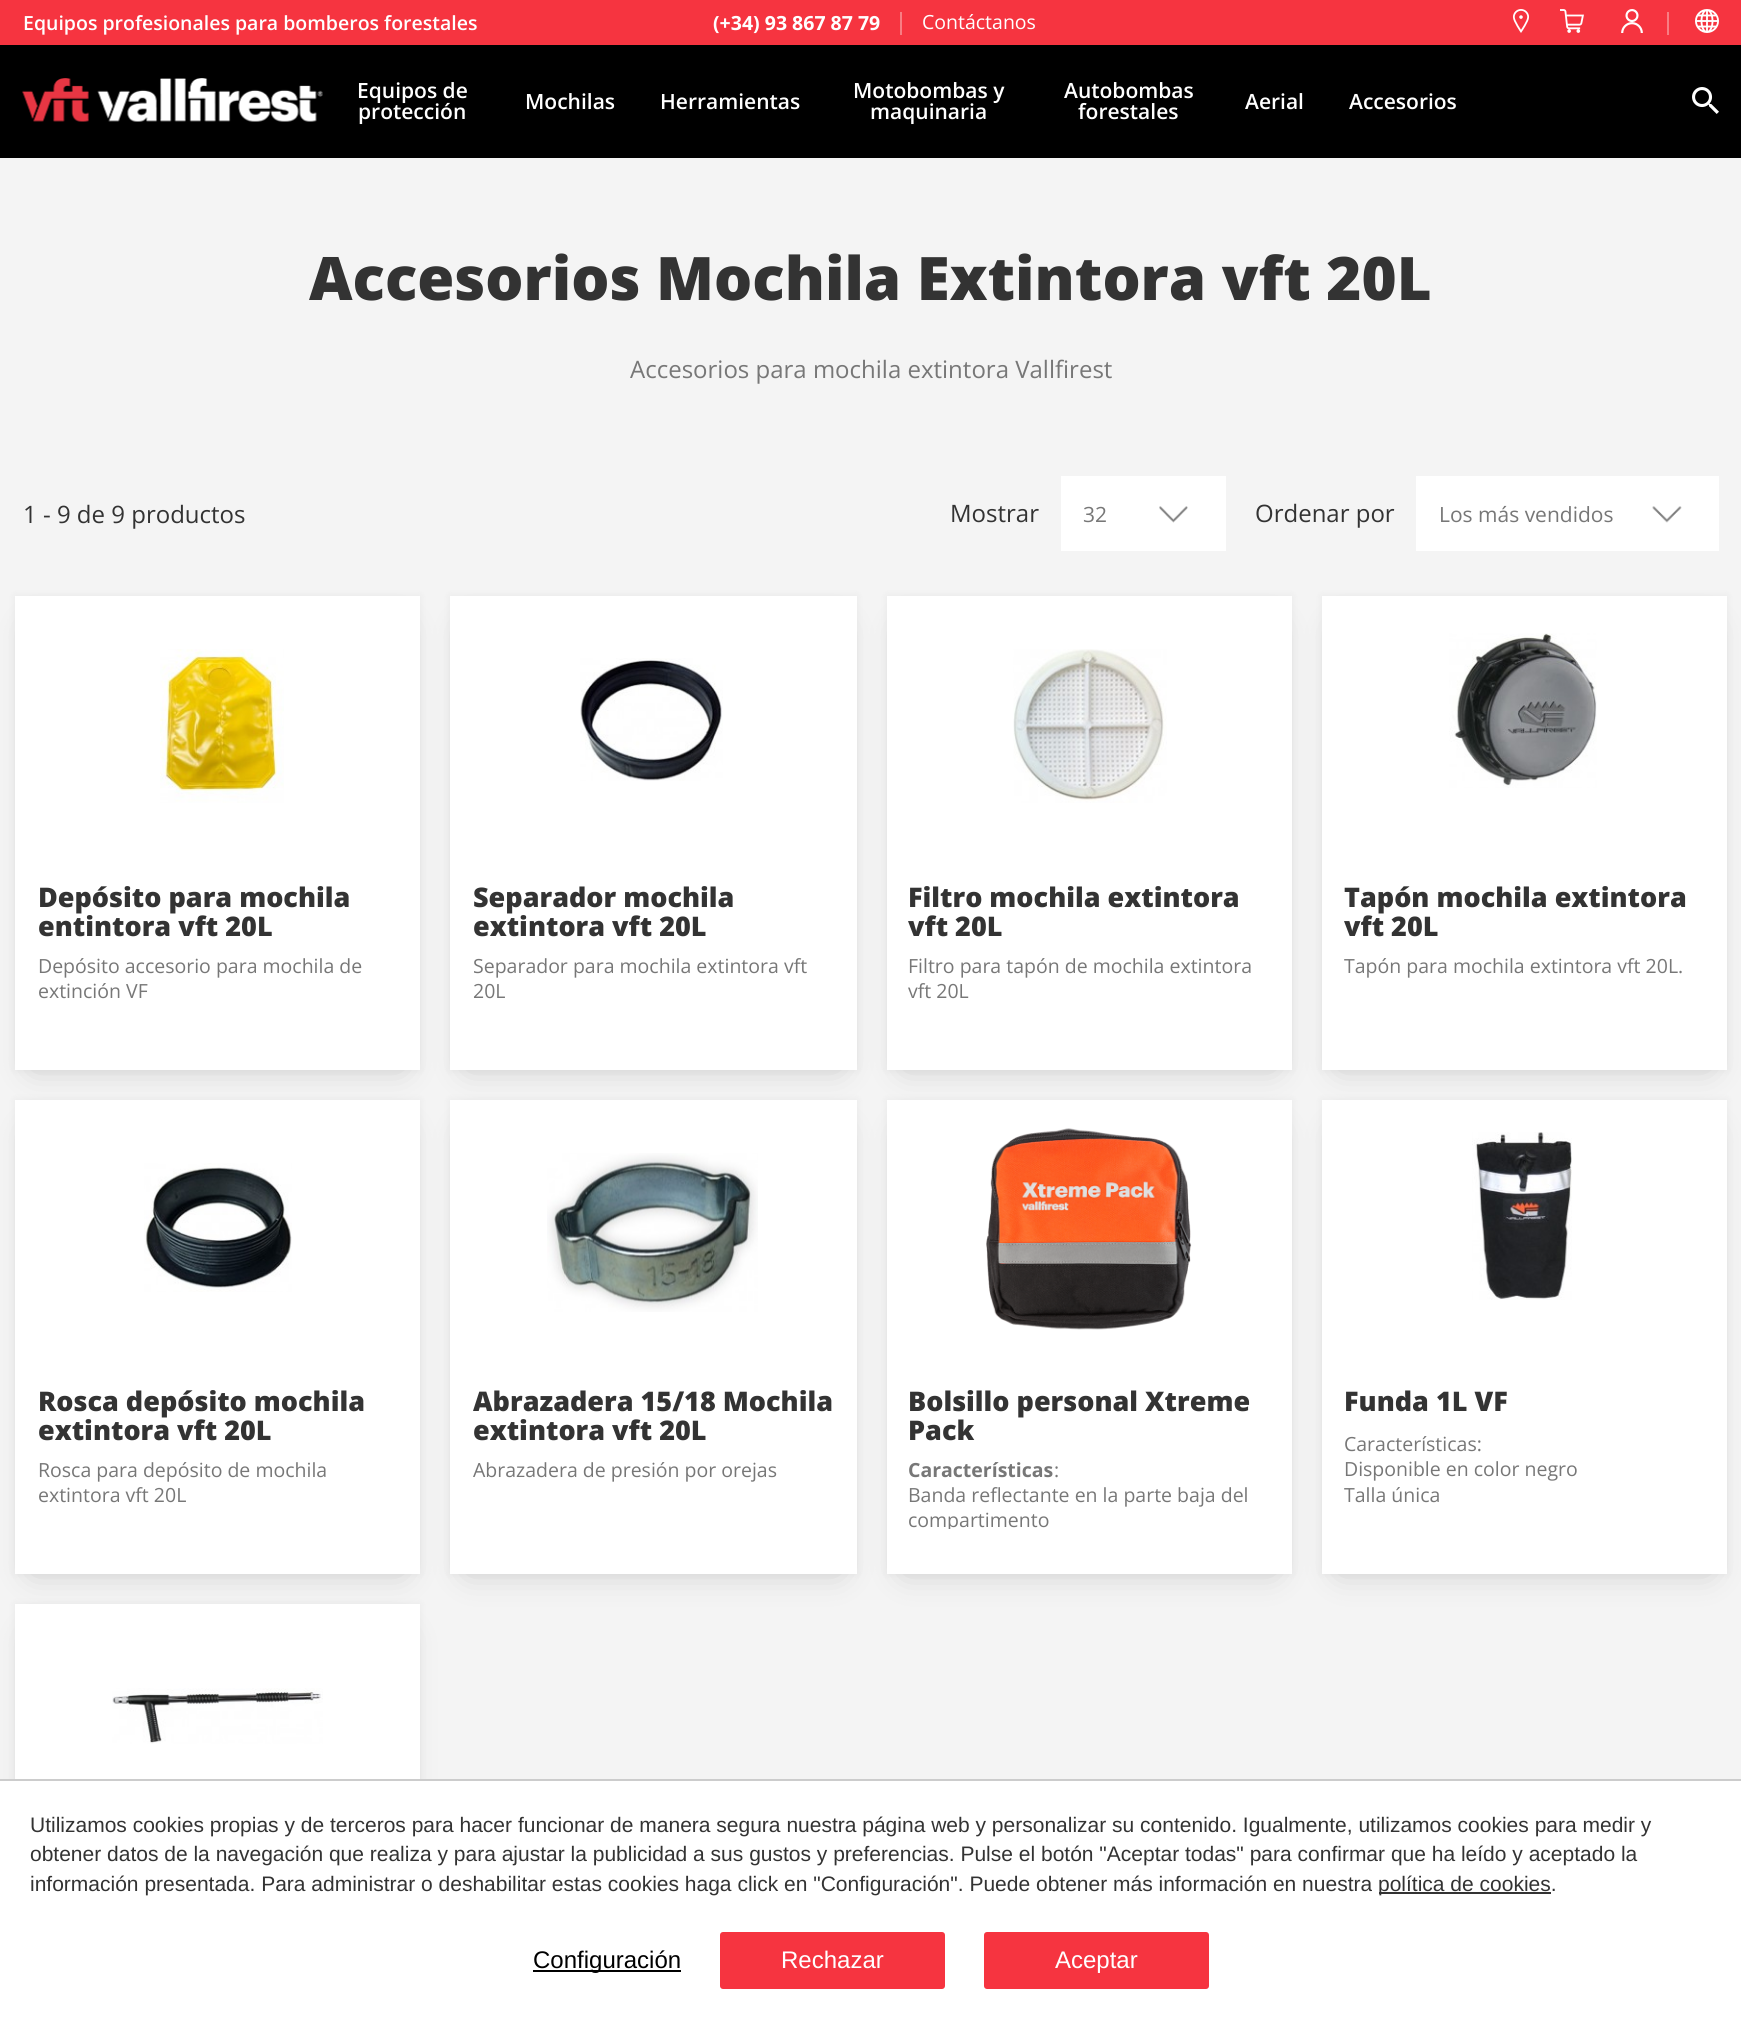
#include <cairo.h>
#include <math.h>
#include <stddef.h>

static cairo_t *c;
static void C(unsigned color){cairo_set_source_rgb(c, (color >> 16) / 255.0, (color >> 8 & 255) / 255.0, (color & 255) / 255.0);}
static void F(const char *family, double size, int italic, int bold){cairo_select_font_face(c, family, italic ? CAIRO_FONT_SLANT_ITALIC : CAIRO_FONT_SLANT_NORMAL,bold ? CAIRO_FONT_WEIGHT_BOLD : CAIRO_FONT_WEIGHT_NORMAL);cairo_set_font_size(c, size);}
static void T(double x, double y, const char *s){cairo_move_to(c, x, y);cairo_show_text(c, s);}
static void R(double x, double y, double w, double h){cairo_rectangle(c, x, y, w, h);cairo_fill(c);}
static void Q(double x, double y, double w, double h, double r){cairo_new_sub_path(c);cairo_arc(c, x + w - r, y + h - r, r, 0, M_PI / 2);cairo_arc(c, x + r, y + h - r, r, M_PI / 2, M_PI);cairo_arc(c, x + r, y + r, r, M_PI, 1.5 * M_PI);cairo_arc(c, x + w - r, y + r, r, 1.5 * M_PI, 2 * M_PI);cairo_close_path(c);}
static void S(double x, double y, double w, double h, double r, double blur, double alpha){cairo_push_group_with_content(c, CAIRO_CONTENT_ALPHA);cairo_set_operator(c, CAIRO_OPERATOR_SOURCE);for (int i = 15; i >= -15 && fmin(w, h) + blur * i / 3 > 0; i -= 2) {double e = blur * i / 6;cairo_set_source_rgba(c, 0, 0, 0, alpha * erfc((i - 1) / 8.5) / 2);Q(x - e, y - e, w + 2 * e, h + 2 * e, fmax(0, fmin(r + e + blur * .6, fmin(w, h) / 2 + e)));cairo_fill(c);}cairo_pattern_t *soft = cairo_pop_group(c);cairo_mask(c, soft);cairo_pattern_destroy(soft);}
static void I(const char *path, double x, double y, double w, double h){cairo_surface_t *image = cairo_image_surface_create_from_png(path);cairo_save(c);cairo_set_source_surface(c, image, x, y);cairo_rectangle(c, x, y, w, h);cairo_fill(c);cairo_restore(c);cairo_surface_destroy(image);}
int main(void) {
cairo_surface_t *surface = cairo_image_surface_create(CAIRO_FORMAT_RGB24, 1741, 2025);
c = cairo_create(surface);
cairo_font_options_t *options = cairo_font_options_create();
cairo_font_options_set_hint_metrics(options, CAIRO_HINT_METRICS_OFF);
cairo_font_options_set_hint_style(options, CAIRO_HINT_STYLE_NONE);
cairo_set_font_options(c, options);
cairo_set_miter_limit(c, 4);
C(0xf4f4f4);
cairo_paint(c);
C(0xf63440);
R(0,0,1741,45);
F("Open Sans SemiBold",19.5,0,0);
C(0xffffff);
T(23,30,"Equipos profesionales para bomberos forestales");
F("Open Sans",19.5,0,1);
T(713,30,"(+34) 93 867 87 79");
C(0xf87d83);
R(900,12,2,23);
F("Open Sans",19.5,0,0);
C(0xffffff);
T(922,29,"Contáctanos");
I("1.png",1512,9,17,24);
I("2.png",1560,9,24,24);
I("3.png",1621,9,22,24);
C(0xf87d83);
R(1667,12,2,23);
I("4.png",1695,9,24,24);
C(0x000000);
R(0,45,1741,113);
I("5.png",22,78,301,44);
F("Open Sans SemiBold",21,0,0);
C(0xffffff);
T(357,98,"Equipos de");
T(358,119,"protección");
T(525,109,"Mochilas");
T(660,109,"Herramientas");
T(853,98,"Motobombas y");
T(870,119,"maquinaria");
T(1064,98,"Autobombas");
T(1078,119,"forestales");
T(1245,109,"Aerial");
T(1349,109,"Accesorios");
I("6.png",1692,87,27,27);
F("Open Sans ExtraBold",60,0,0);
C(0x333333);
T(309,300,"Accesorios Mochila Extintora vft 20L");
F("Open Sans",24,0,0);
C(0x777777);
T(630,378,"Accesorios para mochila extintora Vallfirest");
C(0x333333);
T(23,523,"1 - 9 de 9 productos");
T(950,522,"Mostrar");
C(0xffffff);
R(1061,476,165,75);
I("7.png",1159,506,29,17);
F("Open Sans",21,0,0);
C(0x777777);
T(1083,522,"32");
F("Open Sans",24,0,0);
C(0x333333);
T(1255,522,"Ordenar por");
C(0xffffff);
R(1416,476,303,75);
I("8.png",1652,506,30,17);
F("Open Sans",21,0,0);
C(0x777777);
T(1439,522,"Los más vendidos");
C(0x000000);
S(15,596,405,474,0,4,.05);
S(33,629,369,438,0,16.5,.19);
C(0xffffff);
R(15,596,405,474);
I("9.png",160,649,124,154);
F("Open Sans ExtraBold",27,0,0);
C(0x333333);
T(38,907,"Depósito para mochila");
T(38,936,"entintora vft 20L");
F("Open Sans",19.5,0,0);
C(0x777777);
T(38,973,"Depósito accesorio para mochila de");
T(38,998,"extinción VF");
C(0x000000);
S(450,596,407,474,0,4,.05);
S(468,629,371,438,0,16.5,.19);
C(0xffffff);
R(450,596,407,474);
I("10.png",580,658,143,123);
F("Open Sans ExtraBold",27,0,0);
C(0x333333);
T(473,907,"Separador mochila");
T(473,936,"extintora vft 20L");
F("Open Sans",19.5,0,0);
C(0x777777);
T(473,973,"Separador para mochila extintora vft");
T(473,998,"20L");
C(0x000000);
S(887,596,405,474,0,4,.05);
S(905,629,369,438,0,16.5,.19);
C(0xffffff);
R(887,596,405,474);
I("11.png",1013,649,154,154);
F("Open Sans ExtraBold",27,0,0);
C(0x333333);
T(908,907,"Filtro mochila extintora");
T(908,936,"vft 20L");
F("Open Sans",19.5,0,0);
C(0x777777);
T(908,973,"Filtro para tapón de mochila extintora");
T(908,998,"vft 20L");
C(0x000000);
S(1322,596,405,474,0,4,.05);
S(1340,629,369,438,0,16.5,.19);
C(0xffffff);
R(1322,596,405,474);
I("12.png",1449,633,148,155);
F("Open Sans ExtraBold",27,0,0);
C(0x333333);
T(1344,907,"Tapón mochila extintora");
T(1344,936,"vft 20L");
F("Open Sans",19.5,0,0);
C(0x777777);
T(1344,973,"Tapón para mochila extintora vft 20L.");
C(0x000000);
S(15,1100,405,474,0,4,.05);
S(33,1133,369,438,0,16.5,.19);
C(0xffffff);
R(15,1100,405,474);
I("13.png",144,1163,148,129);
F("Open Sans ExtraBold",27,0,0);
C(0x333333);
T(38,1411,"Rosca depósito mochila");
T(38,1440,"extintora vft 20L");
F("Open Sans",19.5,0,0);
C(0x777777);
T(38,1477,"Rosca para depósito de mochila");
T(38,1502,"extintora vft 20L");
C(0x000000);
S(450,1100,407,474,0,4,.05);
S(468,1133,371,438,0,16.5,.19);
C(0xffffff);
R(450,1100,407,474);
I("14.png",547,1153,211,159);
F("Open Sans ExtraBold",27,0,0);
C(0x333333);
T(473,1411,"Abrazadera 15/18 Mochila");
T(473,1440,"extintora vft 20L");
F("Open Sans",19.5,0,0);
C(0x777777);
T(473,1477,"Abrazadera de presión por orejas");
C(0x000000);
S(887,1100,405,474,0,4,.05);
S(905,1133,369,438,0,16.5,.19);
C(0xffffff);
R(887,1100,405,474);
I("15.png",986,1128,206,202);
F("Open Sans ExtraBold",27,0,0);
C(0x333333);
T(908,1411,"Bolsillo personal Xtreme");
T(908,1440,"Pack");
F("Open Sans",19.5,0,1);
C(0x777777);
T(908,1477,"Características");
F("Open Sans",19.5,0,0);
T(1054,1477,":");
T(908,1502,"Banda reflectante en la parte baja del");
cairo_save(c);
cairo_rectangle(c,909,1457,360,72);
cairo_clip(c);
T(908,1527,"compartimento");
cairo_restore(c);
C(0x000000);
S(1322,1100,405,474,0,4,.05);
S(1340,1133,369,438,0,16.5,.19);
C(0xffffff);
R(1322,1100,405,474);
I("16.png",1472,1132,100,168);
F("Open Sans ExtraBold",27,0,0);
C(0x333333);
T(1344,1411,"Funda 1L VF");
F("Open Sans",19.5,0,0);
C(0x777777);
T(1344,1451,"Características:");
T(1344,1476,"Disponible en color negro");
T(1344,1502,"Talla única");
C(0x000000);
S(15,1604,405,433,0,4,.05);
S(33,1637,369,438,0,16.5,.19);
C(0xffffff);
R(15,1604,405,175);
I("17.png",112,1688,211,56);
R(0,1781,1741,244);
C(0xcccccc);
R(0,1779,1741,2);
F("Liberation Sans",21,0,0);
C(0x333333);
T(30,1832,"Utilizamos cookies propias y de terceros para hacer funcionar de manera segura nuestra página web y personalizar su contenido. Igualmente, utilizamos cookies para medir y");
T(30,1861,"obtener datos de la navegación que realiza y para ajustar la publicidad a sus gustos y preferencias. Pulse el botón \"Aceptar todas\" para confirmar que ha leído y aceptado la");
T(30,1891,"información presentada. Para administrar o deshabilitar estas cookies haga click en \"Configuración\". Puede obtener más información en nuestra");
R(1379,1892,172,2);
T(1378,1891,"política de cookies.");
C(0x000000);
R(533,1970,148,2);
F("Liberation Sans",24,0,0);
T(533,1968,"Configuración");
C(0xf63440);
Q(721,1933,223,55,2);
cairo_fill_preserve(c);
cairo_stroke(c);
C(0xffffff);
T(781,1968,"Rechazar");
C(0xf63440);
Q(985,1933,223,55,2);
cairo_fill_preserve(c);
cairo_stroke(c);
C(0xffffff);
T(1055,1968,"Aceptar");
cairo_surface_write_to_png(surface, "o.png");
cairo_font_options_destroy(options);
cairo_destroy(c);
cairo_surface_destroy(surface);
return 0;
}
